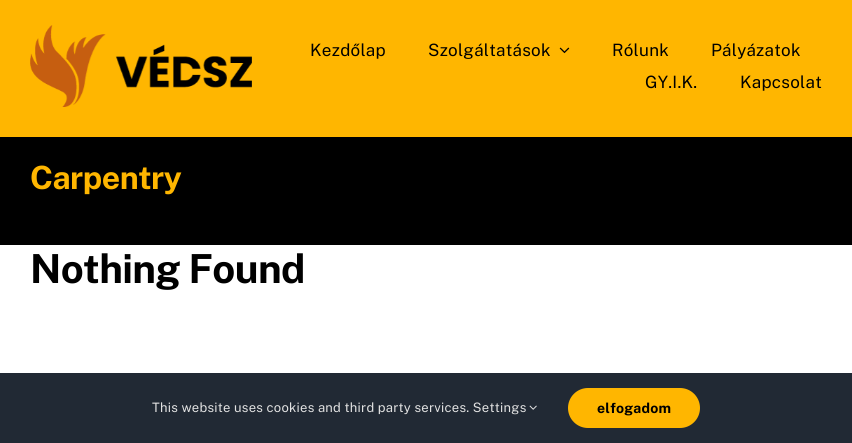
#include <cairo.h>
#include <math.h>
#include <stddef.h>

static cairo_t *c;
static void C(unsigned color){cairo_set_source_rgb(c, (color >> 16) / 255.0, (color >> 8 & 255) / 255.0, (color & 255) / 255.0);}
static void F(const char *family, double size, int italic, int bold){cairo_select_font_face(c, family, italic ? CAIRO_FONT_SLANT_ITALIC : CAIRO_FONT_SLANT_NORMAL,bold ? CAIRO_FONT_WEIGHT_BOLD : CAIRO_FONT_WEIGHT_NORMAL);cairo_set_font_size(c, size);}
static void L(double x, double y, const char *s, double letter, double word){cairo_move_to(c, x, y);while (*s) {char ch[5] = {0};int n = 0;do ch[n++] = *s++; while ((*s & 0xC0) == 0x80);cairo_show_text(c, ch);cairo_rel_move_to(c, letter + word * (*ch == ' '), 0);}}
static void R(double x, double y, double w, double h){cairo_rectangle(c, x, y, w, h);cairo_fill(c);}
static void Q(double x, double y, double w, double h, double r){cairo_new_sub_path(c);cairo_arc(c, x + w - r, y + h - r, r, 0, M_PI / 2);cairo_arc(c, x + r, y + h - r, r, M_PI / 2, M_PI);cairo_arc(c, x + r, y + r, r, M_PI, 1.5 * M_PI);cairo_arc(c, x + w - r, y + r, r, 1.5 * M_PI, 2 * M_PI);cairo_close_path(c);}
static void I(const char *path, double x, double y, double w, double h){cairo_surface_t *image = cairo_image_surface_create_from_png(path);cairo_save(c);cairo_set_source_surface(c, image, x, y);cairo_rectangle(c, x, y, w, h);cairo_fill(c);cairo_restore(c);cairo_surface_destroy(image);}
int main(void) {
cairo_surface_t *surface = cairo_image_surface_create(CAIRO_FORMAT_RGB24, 852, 443);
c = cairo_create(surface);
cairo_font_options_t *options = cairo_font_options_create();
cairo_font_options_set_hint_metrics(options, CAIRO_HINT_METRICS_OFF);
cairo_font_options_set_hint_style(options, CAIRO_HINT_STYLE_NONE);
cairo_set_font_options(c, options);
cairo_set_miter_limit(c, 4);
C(0xffffff);
cairo_paint(c);
C(0xffb600);
R(0,0,852,137);
I("1.png",30,25,222,82);
F("Public Sans",17,0,0);
C(0x000000);
L(310,56,"Kezdőlap",.25,0);
L(428,56,"Szolgáltatások",.25,0);
I("2.png",559,47,11,7);
L(612,56,"Rólunk",.25,0);
L(711,56,"Pályázatok",.25,0);
L(645,88,"GY.I.K.",.25,0);
L(740,88,"Kapcsolat",.25,0);
R(0,137,852,108);
F("Public Sans",32,0,1);
C(0xffb600);
L(30,189,"Carpentry",-.5,0);
F("Public Sans",40,0,1);
C(0x000000);
L(30,283,"Nothing Found",-.6,0);
C(0x212934);
R(0,373,852,70);
F("Public Sans",13,0,0);
C(0xe2e2e2);
L(152,412,"This website uses cookies and third party services. Settings",.25,0);
I("3.png",529,405,8,5);
C(0xffb600);
Q(568,388,132,40,20);
cairo_fill(c);
F("Public Sans",14,0,1);
C(0x000000);
L(597,413,"elfogadom",.25,0);
cairo_surface_write_to_png(surface, "o.png");
cairo_font_options_destroy(options);
cairo_destroy(c);
cairo_surface_destroy(surface);
return 0;
}
